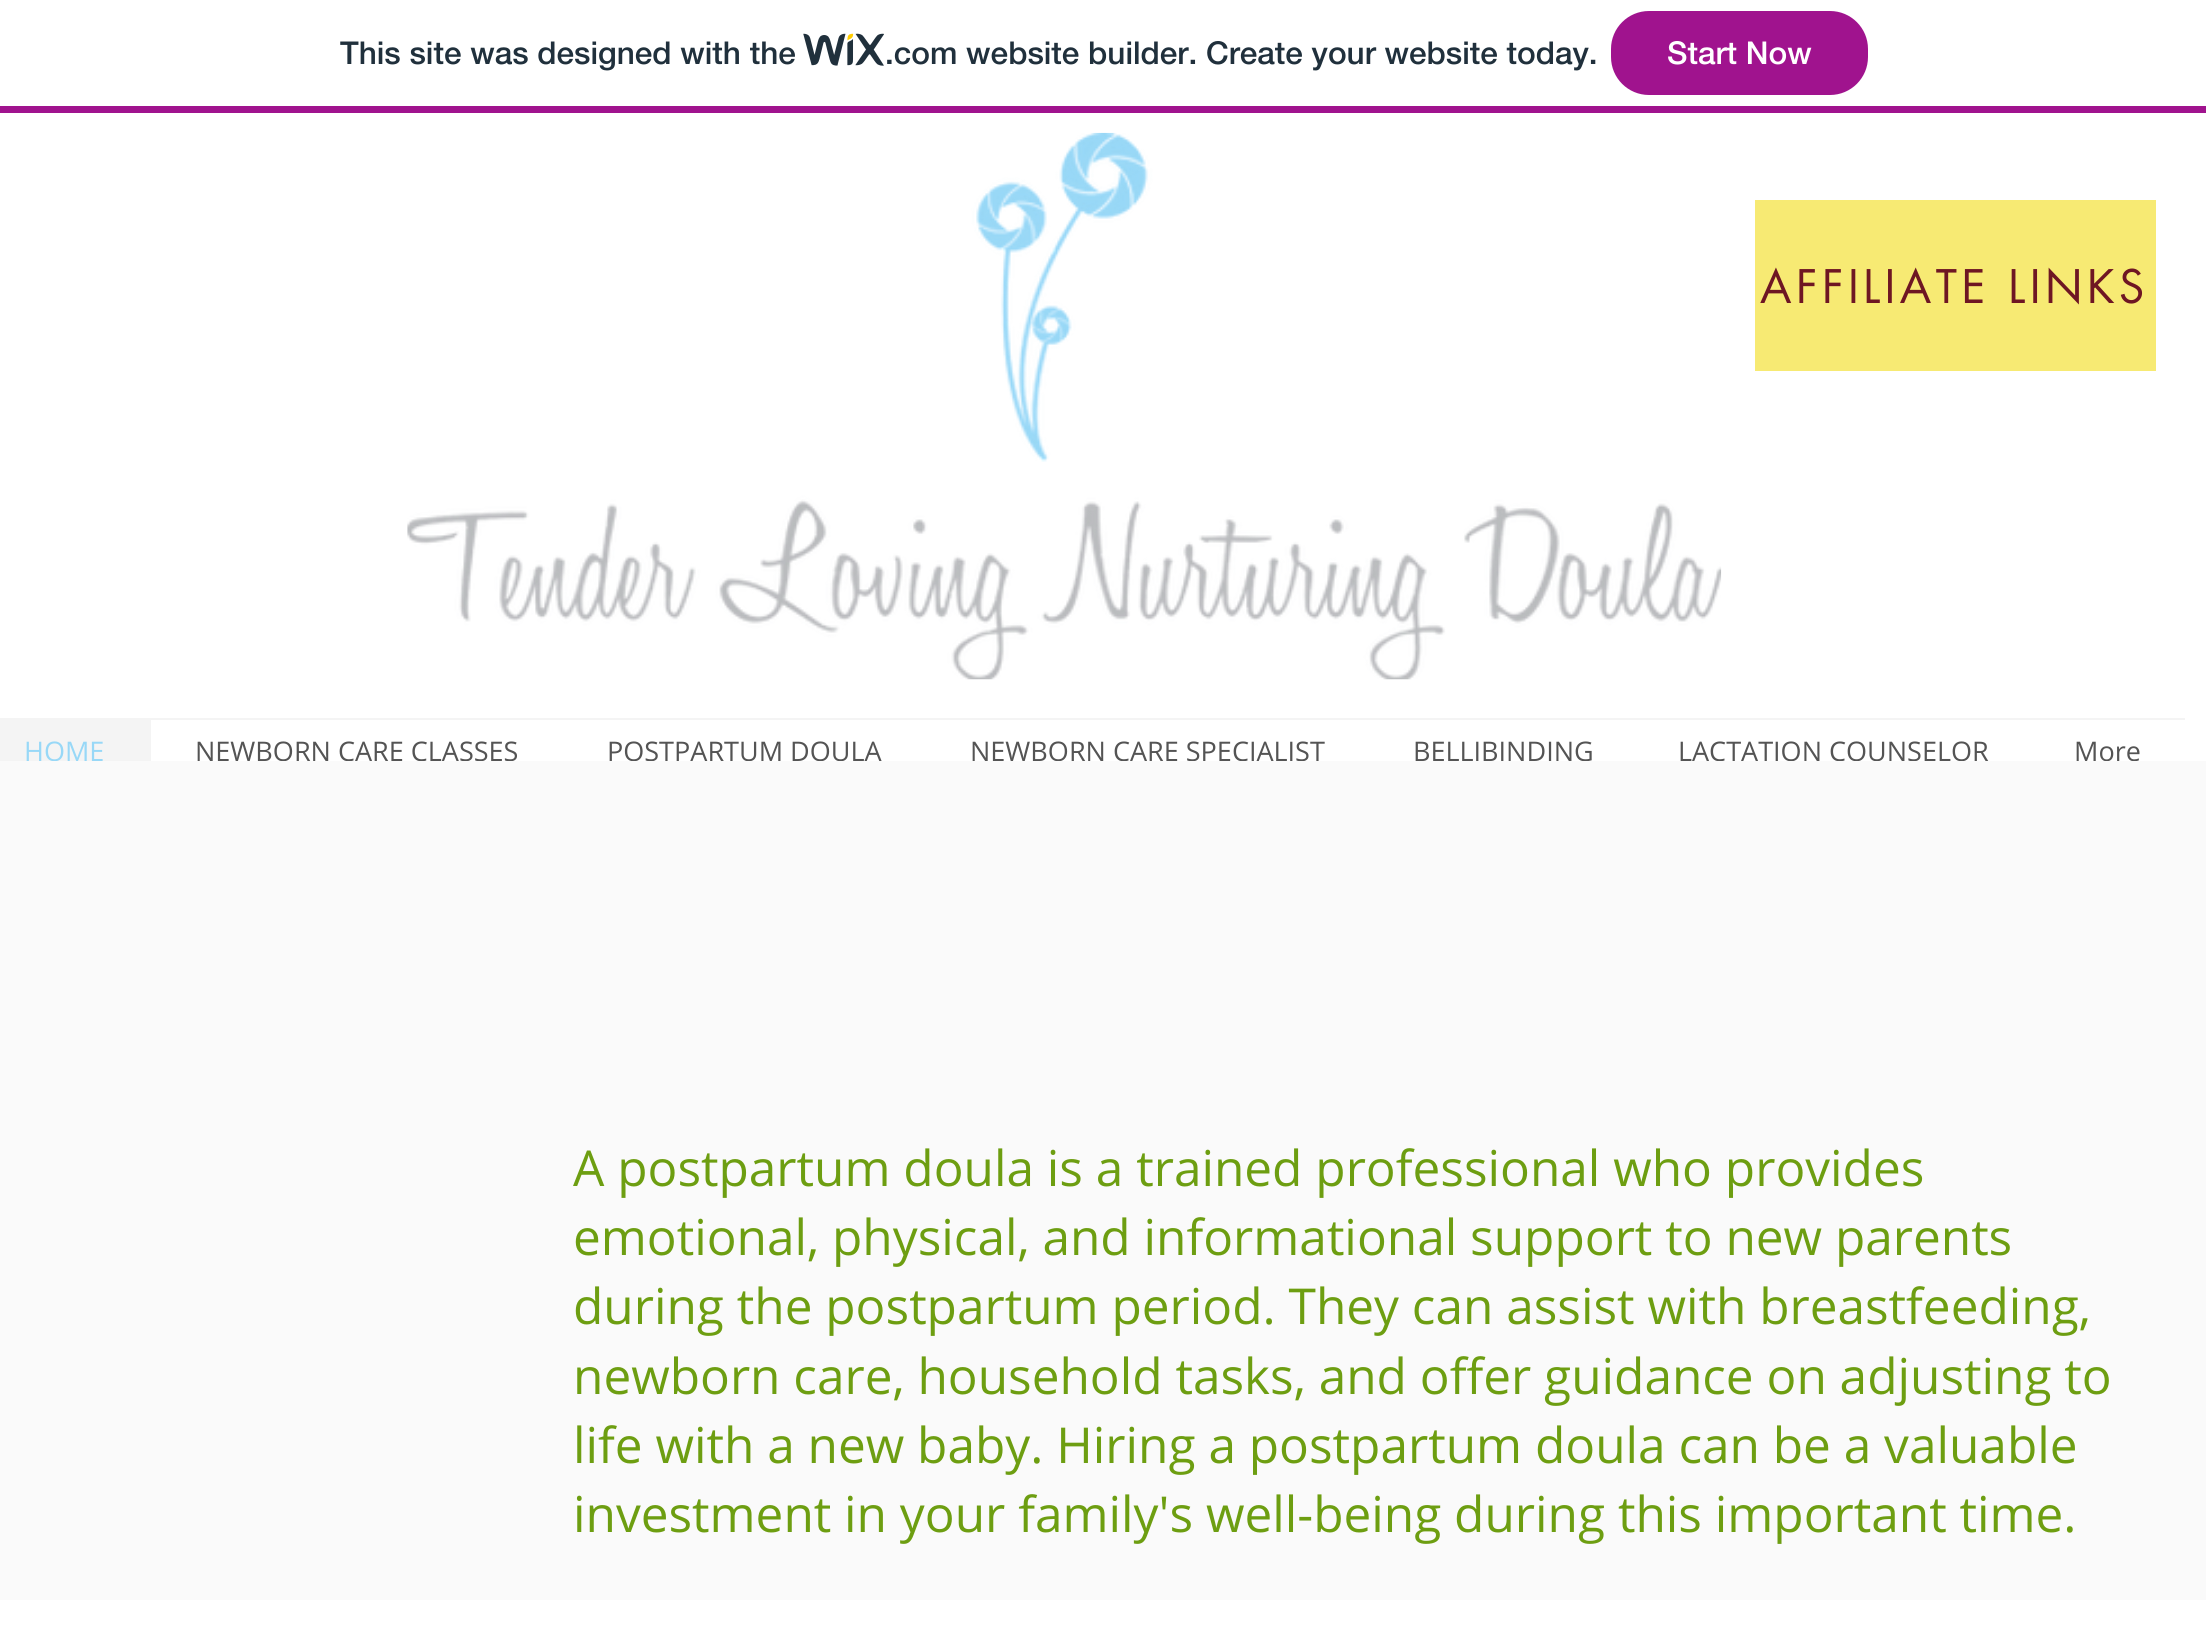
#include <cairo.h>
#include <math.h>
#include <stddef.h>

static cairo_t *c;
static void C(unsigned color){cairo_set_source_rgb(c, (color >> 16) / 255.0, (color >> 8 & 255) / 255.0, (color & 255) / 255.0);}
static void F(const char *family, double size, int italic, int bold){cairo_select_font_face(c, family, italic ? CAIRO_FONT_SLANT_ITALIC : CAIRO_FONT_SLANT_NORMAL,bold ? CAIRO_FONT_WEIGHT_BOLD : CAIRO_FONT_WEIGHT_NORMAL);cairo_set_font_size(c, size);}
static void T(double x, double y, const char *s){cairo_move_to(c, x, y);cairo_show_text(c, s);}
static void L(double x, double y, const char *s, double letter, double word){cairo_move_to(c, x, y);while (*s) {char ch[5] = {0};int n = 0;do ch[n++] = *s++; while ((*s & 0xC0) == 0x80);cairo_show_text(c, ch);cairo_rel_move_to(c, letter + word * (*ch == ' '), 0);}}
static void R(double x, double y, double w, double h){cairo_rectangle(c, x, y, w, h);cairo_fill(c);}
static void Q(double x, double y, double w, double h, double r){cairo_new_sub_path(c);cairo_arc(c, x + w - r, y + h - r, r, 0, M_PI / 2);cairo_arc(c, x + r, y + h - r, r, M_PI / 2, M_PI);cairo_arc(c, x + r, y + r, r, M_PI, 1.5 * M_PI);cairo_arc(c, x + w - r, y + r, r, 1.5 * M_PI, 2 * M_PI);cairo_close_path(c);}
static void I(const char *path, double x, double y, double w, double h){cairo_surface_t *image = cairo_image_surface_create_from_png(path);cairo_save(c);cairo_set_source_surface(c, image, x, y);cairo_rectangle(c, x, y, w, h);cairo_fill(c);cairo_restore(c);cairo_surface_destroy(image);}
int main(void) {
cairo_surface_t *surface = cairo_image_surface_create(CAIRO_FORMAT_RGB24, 2206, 1650);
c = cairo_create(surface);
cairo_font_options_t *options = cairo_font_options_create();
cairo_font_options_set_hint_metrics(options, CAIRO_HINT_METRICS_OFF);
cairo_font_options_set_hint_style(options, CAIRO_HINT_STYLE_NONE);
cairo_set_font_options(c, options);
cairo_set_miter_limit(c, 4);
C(0xffffff);
cairo_paint(c);
C(0xa0138e);
R(0,106,2206,7);
F("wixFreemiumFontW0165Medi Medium",31.5,0,0);
C(0x20303c);
T(340,64,"This site was designed with the");
I("1.png",803,33,81,33);
T(885,64,".com website builder. Create your website today.");
C(0xa0138e);
Q(1612,12,255,82,37);
cairo_fill_preserve(c);
cairo_stroke(c);
C(0xffffff);
T(1667,64,"Start Now");
I("2.png",407,132,1315,548);
C(0xf7ea73);
R(1755,200,401,171);
F("futura",45,0,0);
C(0x6e1623);
L(1760,303,"AFFILIATE LINKS",4.5,0);
C(0xf4f4f4);
R(0,718,2185,2);
R(0,720,151,41);
F("Open Sans",27,0,0);
C(0x98d8f7);
T(24,761,"HOME");
C(0x545454);
T(195,761,"NEWBORN CARE CLASSES");
T(607,761,"POSTPARTUM DOULA");
T(970,761,"NEWBORN CARE SPECIALIST");
T(1413,761,"BELLIBINDING");
T(1678,761,"LACTATION COUNSELOR");
T(2074,761,"More");
C(0xfafafa);
R(0,761,2206,839);
F("Open Sans",49.5,0,0);
C(0x6d9e11);
T(573,1186,"A postpartum doula is a trained professional who provides");
T(573,1255,"emotional, physical, and informational support to new parents");
T(573,1324,"during the postpartum period. They can assist with breastfeeding,");
T(573,1394,"newborn care, household tasks, and offer guidance on adjusting to");
T(573,1463,"life with a new baby. Hiring a postpartum doula can be a valuable");
T(573,1532,"investment in your family's well-being during this important time.");
cairo_surface_write_to_png(surface, "o.png");
cairo_font_options_destroy(options);
cairo_destroy(c);
cairo_surface_destroy(surface);
return 0;
}
